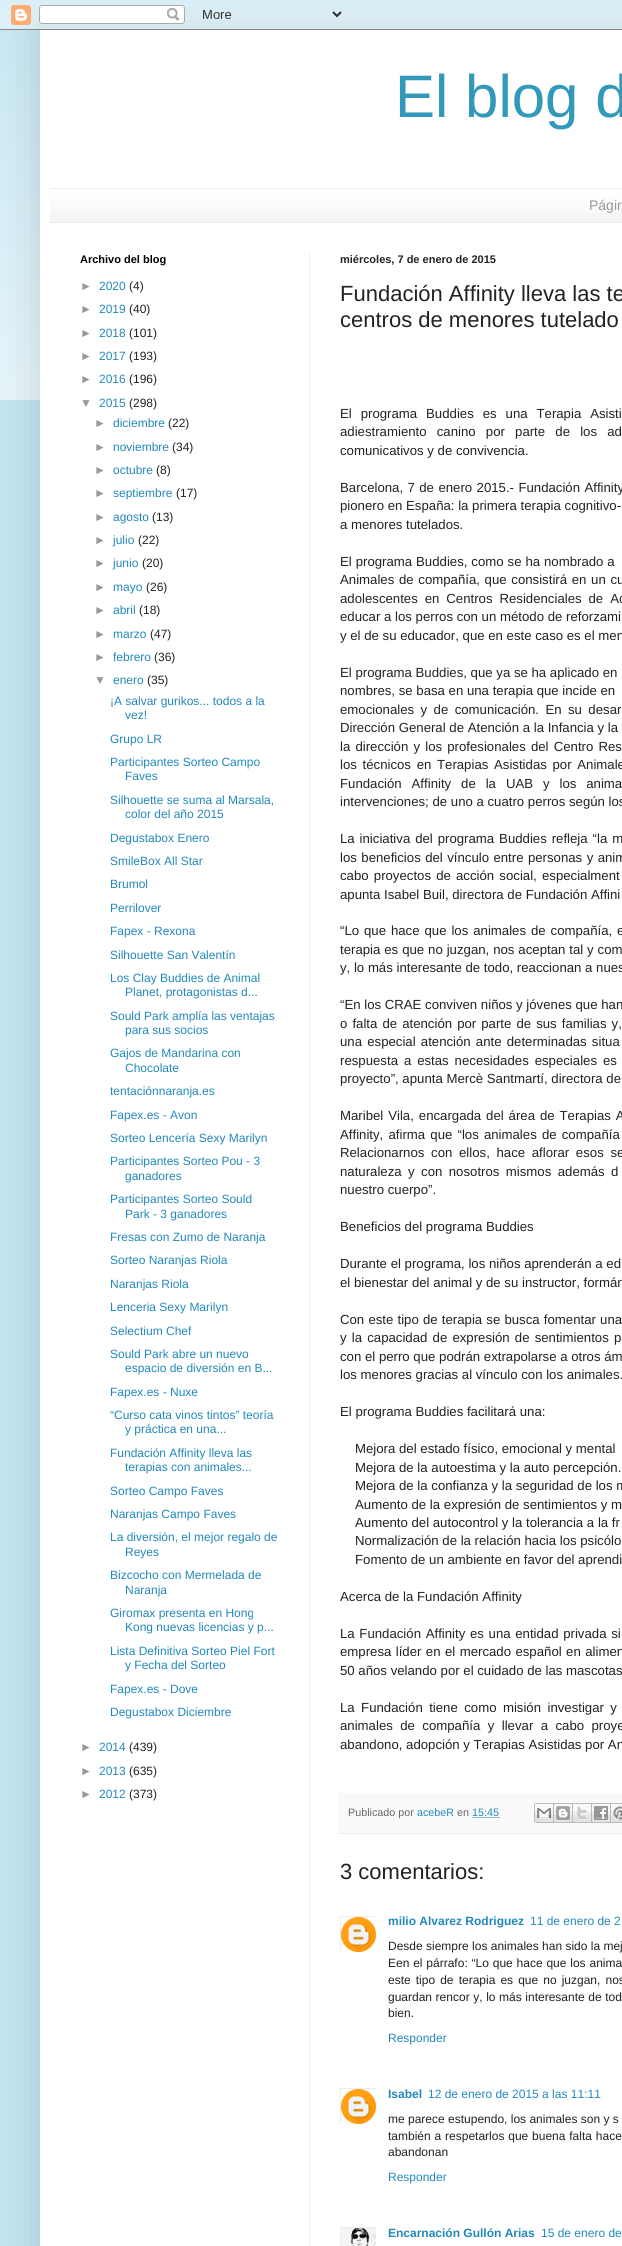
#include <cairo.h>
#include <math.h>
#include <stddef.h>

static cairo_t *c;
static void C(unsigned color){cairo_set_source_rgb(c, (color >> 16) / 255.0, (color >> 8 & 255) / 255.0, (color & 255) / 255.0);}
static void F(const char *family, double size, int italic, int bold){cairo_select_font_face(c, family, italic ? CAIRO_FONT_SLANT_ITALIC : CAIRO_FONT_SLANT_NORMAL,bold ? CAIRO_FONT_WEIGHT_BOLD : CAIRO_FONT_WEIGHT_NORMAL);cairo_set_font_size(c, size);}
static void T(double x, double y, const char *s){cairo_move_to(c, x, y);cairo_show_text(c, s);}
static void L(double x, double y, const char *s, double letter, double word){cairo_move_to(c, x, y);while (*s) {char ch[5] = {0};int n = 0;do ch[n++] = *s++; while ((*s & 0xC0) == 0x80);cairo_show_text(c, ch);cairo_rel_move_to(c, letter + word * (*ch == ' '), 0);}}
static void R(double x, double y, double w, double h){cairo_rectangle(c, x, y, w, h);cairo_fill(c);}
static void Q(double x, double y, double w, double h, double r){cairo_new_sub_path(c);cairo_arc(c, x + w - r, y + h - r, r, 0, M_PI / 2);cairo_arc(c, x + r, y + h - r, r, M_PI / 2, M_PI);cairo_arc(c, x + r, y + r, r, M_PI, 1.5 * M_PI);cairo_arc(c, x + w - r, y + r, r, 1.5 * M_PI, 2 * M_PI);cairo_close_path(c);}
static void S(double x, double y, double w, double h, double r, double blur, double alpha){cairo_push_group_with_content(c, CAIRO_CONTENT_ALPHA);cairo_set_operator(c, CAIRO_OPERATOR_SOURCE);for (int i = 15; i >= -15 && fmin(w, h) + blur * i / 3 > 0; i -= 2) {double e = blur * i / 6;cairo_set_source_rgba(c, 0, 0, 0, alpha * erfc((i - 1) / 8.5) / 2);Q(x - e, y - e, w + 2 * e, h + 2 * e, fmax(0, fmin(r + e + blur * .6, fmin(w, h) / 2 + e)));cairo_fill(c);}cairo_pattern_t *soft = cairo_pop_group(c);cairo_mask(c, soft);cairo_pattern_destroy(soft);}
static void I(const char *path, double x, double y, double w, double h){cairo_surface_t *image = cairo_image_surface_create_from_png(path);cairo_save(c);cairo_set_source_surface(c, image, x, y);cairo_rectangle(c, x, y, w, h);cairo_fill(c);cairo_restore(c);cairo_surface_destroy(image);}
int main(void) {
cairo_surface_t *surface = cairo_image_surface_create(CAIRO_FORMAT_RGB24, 622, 2246);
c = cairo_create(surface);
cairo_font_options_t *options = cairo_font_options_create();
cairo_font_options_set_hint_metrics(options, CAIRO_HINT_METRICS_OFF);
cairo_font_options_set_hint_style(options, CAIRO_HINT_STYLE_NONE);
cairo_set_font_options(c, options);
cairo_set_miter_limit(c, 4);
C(0xc2e5f2);
cairo_paint(c);
I("2.png",0,10,622,390);
C(0x000000);
S(40,30,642,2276,0,20,.15);
I("1.png",0,0,622,30);
C(0xffffff);
R(40,30,582,2216);
F("Liberation Sans",60,0,0);
C(0x3399bb);
T(395,117,"El blog d");
C(0xf5f5f5);
R(50,190,572,32);
I("3.png",50,189,572,24);
C(0xeeeeee);
R(50,188,572,1);
R(50,222,572,1);
F("Liberation Sans",14,0,0);
C(0x999999);
T(589,210,"Págin");
C(0xeeeeee);
R(309,253,1,1993);
F("Liberation Sans",11,0,1);
C(0x000000);
T(80,263,"Archivo del blog");
F("Liberation Sans",12,0,0);
C(0x999999);
T(80,290,"►");
C(0x2288bb);
T(99,290,"2020");
C(0x222222);
T(129,290,"(4)");
C(0x999999);
T(80,313,"►");
C(0x2288bb);
T(99,313,"2019");
C(0x222222);
T(129,313,"(40)");
C(0x999999);
T(80,337,"►");
C(0x2288bb);
T(99,337,"2018");
C(0x222222);
T(129,337,"(101)");
C(0x999999);
T(80,360,"►");
C(0x2288bb);
T(99,360,"2017");
C(0x222222);
T(129,360,"(193)");
C(0x999999);
T(80,383,"►");
C(0x2288bb);
T(99,383,"2016");
C(0x222222);
T(129,383,"(196)");
C(0x999999);
T(80,407,"▼");
C(0x2288bb);
T(99,407,"2015");
C(0x222222);
T(129,407,"(298)");
C(0x999999);
T(94,427,"►");
C(0x2288bb);
T(113,427,"diciembre");
C(0x222222);
T(168,427,"(22)");
C(0x999999);
T(94,451,"►");
C(0x2288bb);
T(113,451,"noviembre");
C(0x222222);
T(172,451,"(34)");
C(0x999999);
T(94,474,"►");
C(0x2288bb);
T(113,474,"octubre");
C(0x222222);
T(156,474,"(8)");
C(0x999999);
T(94,497,"►");
C(0x2288bb);
T(113,497,"septiembre");
C(0x222222);
T(176,497,"(17)");
C(0x999999);
T(94,521,"►");
C(0x2288bb);
T(113,521,"agosto");
C(0x222222);
T(152,521,"(13)");
C(0x999999);
T(94,544,"►");
C(0x2288bb);
T(113,544,"julio");
C(0x222222);
T(138,544,"(22)");
C(0x999999);
T(94,567,"►");
C(0x2288bb);
T(113,567,"junio");
C(0x222222);
T(142,567,"(20)");
C(0x999999);
T(94,591,"►");
C(0x2288bb);
T(113,591,"mayo");
C(0x222222);
T(146,591,"(26)");
C(0x999999);
T(94,614,"►");
C(0x2288bb);
T(113,614,"abril");
C(0x222222);
T(139,614,"(18)");
C(0x999999);
T(94,638,"►");
C(0x2288bb);
T(113,638,"marzo");
C(0x222222);
T(150,638,"(47)");
C(0x999999);
T(94,661,"►");
C(0x2288bb);
T(113,661,"febrero");
C(0x222222);
T(154,661,"(36)");
C(0x999999);
T(94,684,"▼");
C(0x2288bb);
T(113,684,"enero");
C(0x222222);
T(147,684,"(35)");
C(0x2288bb);
T(110,705,"¡A salvar gurikos... todos a la");
T(125,719,"vez!");
T(110,743,"Grupo LR");
T(110,766,"Participantes Sorteo Campo");
T(125,780,"Faves");
T(110,804,"Silhouette se suma al Marsala,");
T(125,818,"color del año 2015");
T(110,842,"Degustabox Enero");
T(110,865,"SmileBox All Star");
T(110,888,"Brumol");
T(110,912,"Perrilover");
T(110,935,"Fapex - Rexona");
T(110,959,"Silhouette San Valentín");
T(110,982,"Los Clay Buddies de Animal");
T(125,996,"Planet, protagonistas d...");
T(110,1020,"Sould Park amplía las ventajas");
T(125,1034,"para sus socios");
T(110,1057,"Gajos de Mandarina con");
T(125,1072,"Chocolate");
T(110,1095,"tentaciónnaranja.es");
T(110,1119,"Fapex.es - Avon");
T(110,1142,"Sorteo Lencería Sexy Marilyn");
T(110,1165,"Participantes Sorteo Pou - 3");
T(125,1180,"ganadores");
T(110,1203,"Participantes Sorteo Sould");
T(125,1218,"Park - 3 ganadores");
T(110,1241,"Fresas con Zumo de Naranja");
T(110,1264,"Sorteo Naranjas Riola");
T(110,1288,"Naranjas Riola");
T(110,1311,"Lenceria Sexy Marilyn");
T(110,1335,"Selectium Chef");
T(110,1358,"Sould Park abre un nuevo");
T(125,1372,"espacio de diversión en B...");
T(110,1396,"Fapex.es - Nuxe");
T(110,1419,"“Curso cata vinos tintos” teoría");
T(125,1433,"y práctica en una...");
T(110,1457,"Fundación Affinity lleva las");
T(125,1471,"terapias con animales...");
T(110,1495,"Sorteo Campo Faves");
T(110,1518,"Naranjas Campo Faves");
T(110,1541,"La diversión, el mejor regalo de");
T(125,1556,"Reyes");
T(110,1579,"Bizcocho con Mermelada de");
T(125,1594,"Naranja");
T(110,1617,"Giromax presenta en Hong");
T(125,1631,"Kong nuevas licencias y p...");
T(110,1655,"Lista Definitiva Sorteo Piel Fort");
T(125,1669,"y Fecha del Sorteo");
T(110,1693,"Fapex.es - Dove");
T(110,1716,"Degustabox Diciembre");
C(0x999999);
T(80,1751,"►");
C(0x2288bb);
T(99,1751,"2014");
C(0x222222);
T(129,1751,"(439)");
C(0x999999);
T(80,1775,"►");
C(0x2288bb);
T(99,1775,"2013");
C(0x222222);
T(129,1775,"(635)");
C(0x999999);
T(80,1798,"►");
C(0x2288bb);
T(99,1798,"2012");
C(0x222222);
T(129,1798,"(373)");
F("Liberation Sans",11,0,1);
T(340,263,"miércoles, 7 de enero de 2015");
F("Liberation Sans",22,0,0);
T(340,301,"Fundación Affinity lleva las te");
T(340,327,"centros de menores tutelado");
F("Liberation Sans",13.2,0,0);
L(340,418,"El programa Buddies es una Terapia Asisti",0,5.25);
L(340,436,"adiestramiento canino por parte de los ad",0,6.5);
T(340,455,"comunicativos y de convivencia.");
L(340,492,"Barcelona, 7 de enero 2015.- Fundación Affinity",0,.75);
T(340,510,"pionero en España: la primera terapia cognitivo-");
T(340,529,"a menores tutelados.");
L(340,566,"El programa Buddies, como se ha nombrado a",0,.25);
L(340,584,"Animales de compañía, que consistirá en un cu",0,1);
L(340,603,"adolescentes en Centros Residenciales de Ac",0,3.25);
T(340,621,"educar a los perros con un método de reforzami");
T(340,640,"y el de su educador, que en este caso es el men");
T(340,677,"El programa Buddies, que ya se ha aplicado en");
T(340,695,"nombres, se basa en una terapia que incide en");
L(340,714,"emocionales y de comunicación. En su desar",0,2.75);
T(340,732,"Dirección General de Atención a la Infancia y la");
L(340,751,"la dirección y los profesionales del Centro Res",0,1.5);
L(340,769,"los técnicos en Terapias Asistidas por Animale",0,2);
L(340,788,"Fundación Affinity de la UAB y los anima",0,6.25);
T(340,806,"intervenciones; de uno a cuatro perros según los");
L(340,843,"La iniciativa del programa Buddies refleja “la m",0,1.25);
L(340,862,"los beneficios del vínculo entre personas y anim",0,.75);
L(340,880,"cabo proyectos de acción social, especialment",0,1.5);
T(340,899,"apunta Isabel Buil, directora de Fundación Affini");
L(340,935,"“Lo que hace que los animales de compañía, e",0,1.25);
L(340,954,"terapia es que no juzgan, nos aceptan tal y com",0,.25);
T(340,972,"y, lo más interesante de todo, reaccionan a nues");
T(340,1009,"“En los CRAE conviven niños y jóvenes que han");
L(340,1028,"o falta de atención por parte de sus familias y,",0,1.4);
L(340,1046,"una especial atención ante determinadas situa",0,1.5);
L(340,1065,"respuesta a estas necesidades especiales es",0,2.25);
T(340,1083,"proyecto”, apunta Mercè Santmartí, directora de");
L(340,1120,"Maribel Vila, encargada del área de Terapias A",0,1.25);
L(340,1139,"Affinity, afirma que “los animales de compañía",0,1.5);
L(340,1157,"Relacionarnos con ellos, hace aflorar esos se",0,3);
L(340,1176,"naturaleza y con nosotros mismos además d",0,2.75);
T(340,1194,"nuestro cuerpo”.");
T(340,1231,"Beneficios del programa Buddies");
T(340,1268,"Durante el programa, los niños aprenderán a ed");
T(340,1287,"el bienestar del animal y de su instructor, formán");
L(340,1324,"Con este tipo de terapia se busca fomentar una",0,.5);
L(340,1342,"y la capacidad de expresión de sentimientos p",0,1.5);
T(340,1361,"con el perro que podrán extrapolarse a otros ám");
T(340,1379,"los menores gracias al vínculo con los animales.");
T(340,1416,"El programa Buddies facilitará una:");
T(355,1453,"Mejora del estado físico, emocional y mental");
T(355,1472,"Mejora de la autoestima y la auto percepción.");
T(355,1490,"Mejora de la confianza y la seguridad de los m");
T(355,1509,"Aumento de la expresión de sentimientos y m");
T(355,1527,"Aumento del autocontrol y la tolerancia a la fr");
T(355,1545,"Normalización de la relación hacia los psicólo");
T(355,1564,"Fomento de un ambiente en favor del aprendi");
T(340,1601,"Acerca de la Fundación Affinity");
L(340,1638,"La Fundación Affinity es una entidad privada si",0,1);
L(340,1656,"empresa líder en el mercado español en alimen",0,.75);
T(340,1675,"50 años velando por el cuidado de las mascotas");
L(340,1712,"La Fundación tiene como misión investigar y",0,2.75);
L(340,1730,"animales de compañía y llevar a cabo proye",0,3.75);
T(340,1749,"abandono, adopción y Terapias Asistidas por An");
C(0xf9f9f9);
R(338,1793,284,40);
C(0xeeeeee);
R(338,1833,284,1);
F("Liberation Sans",10.75,0,0);
C(0x666666);
T(348,1816,"Publicado por");
C(0x2288bb);
T(417,1816,"acebeR");
C(0x666666);
T(457,1816,"en");
C(0x2288bb);
T(472,1816,"15:45");
cairo_new_path(c);
cairo_move_to(c,472.5,1817.5);
cairo_line_to(c,499.5,1817.5);
cairo_set_line_width(c,1);
cairo_set_dash(c,(double[]){1,1},2,0);
cairo_stroke(c);
I("4.png",534,1803,20,20);
I("5.png",554,1803,19,20);
I("6.png",573,1803,19,20);
I("7.png",592,1803,19,20);
I("8.png",611,1803,11,20);
F("Liberation Sans",22,0,0);
C(0x222222);
T(340,1879,"3 comentarios:");
cairo_save(c);
cairo_rectangle(c,340,1916,36,36);
cairo_clip(c);
cairo_rectangle(c,340.5,1916.5,36,36);
C(0xeeeeee);
cairo_set_dash(c,NULL,0,0);
cairo_stroke(c);
cairo_restore(c);
I("9.png",341,1917,35,35);
F("Liberation Sans",12,0,1);
C(0x2288bb);
T(388,1925,"milio Alvarez Rodriguez");
F("Liberation Sans",12,0,0);
T(530,1925,"11 de enero de 2");
C(0x222222);
T(388,1950,"Desde siempre los animales han sido la mej");
L(388,1967,"Een el párrafo: “Lo que hace que los anima",0,.5);
L(388,1984,"este tipo de terapia es que no juzgan, nos",0,1.75);
L(388,2001,"guardan rencor y, lo más interesante de tod",0,.25);
T(388,2017,"bien.");
C(0x2288bb);
T(388,2042,"Responder");
cairo_save(c);
cairo_rectangle(c,340,2088,36,36);
cairo_clip(c);
cairo_rectangle(c,340.5,2088.5,36,36);
C(0xeeeeee);
cairo_set_dash(c,NULL,0,0);
cairo_stroke(c);
cairo_restore(c);
I("9.png",341,2089,35,35);
F("Liberation Sans",12,0,1);
T(388,2098,"Isabel");
F("Liberation Sans",12,0,0);
T(428,2098,"12 de enero de 2015 a las 11:11");
C(0x222222);
T(388,2123,"me parece estupendo, los animales son y s");
L(388,2140,"también a respetarlos que buena falta hace",0,.5);
T(388,2156,"abandonan");
C(0x2288bb);
T(388,2181,"Responder");
cairo_save(c);
cairo_rectangle(c,340,2227,36,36);
cairo_clip(c);
cairo_rectangle(c,340.5,2227.5,37,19);
C(0xeeeeee);
cairo_set_dash(c,NULL,0,0);
cairo_stroke(c);
cairo_restore(c);
I("10.png",341,2228,35,18);
F("Liberation Sans",12,0,1);
T(388,2237,"Encarnación Gullón Arias");
F("Liberation Sans",12,0,0);
T(541,2237,"15 de enero de");
cairo_surface_write_to_png(surface, "o.png");
cairo_font_options_destroy(options);
cairo_destroy(c);
cairo_surface_destroy(surface);
return 0;
}
